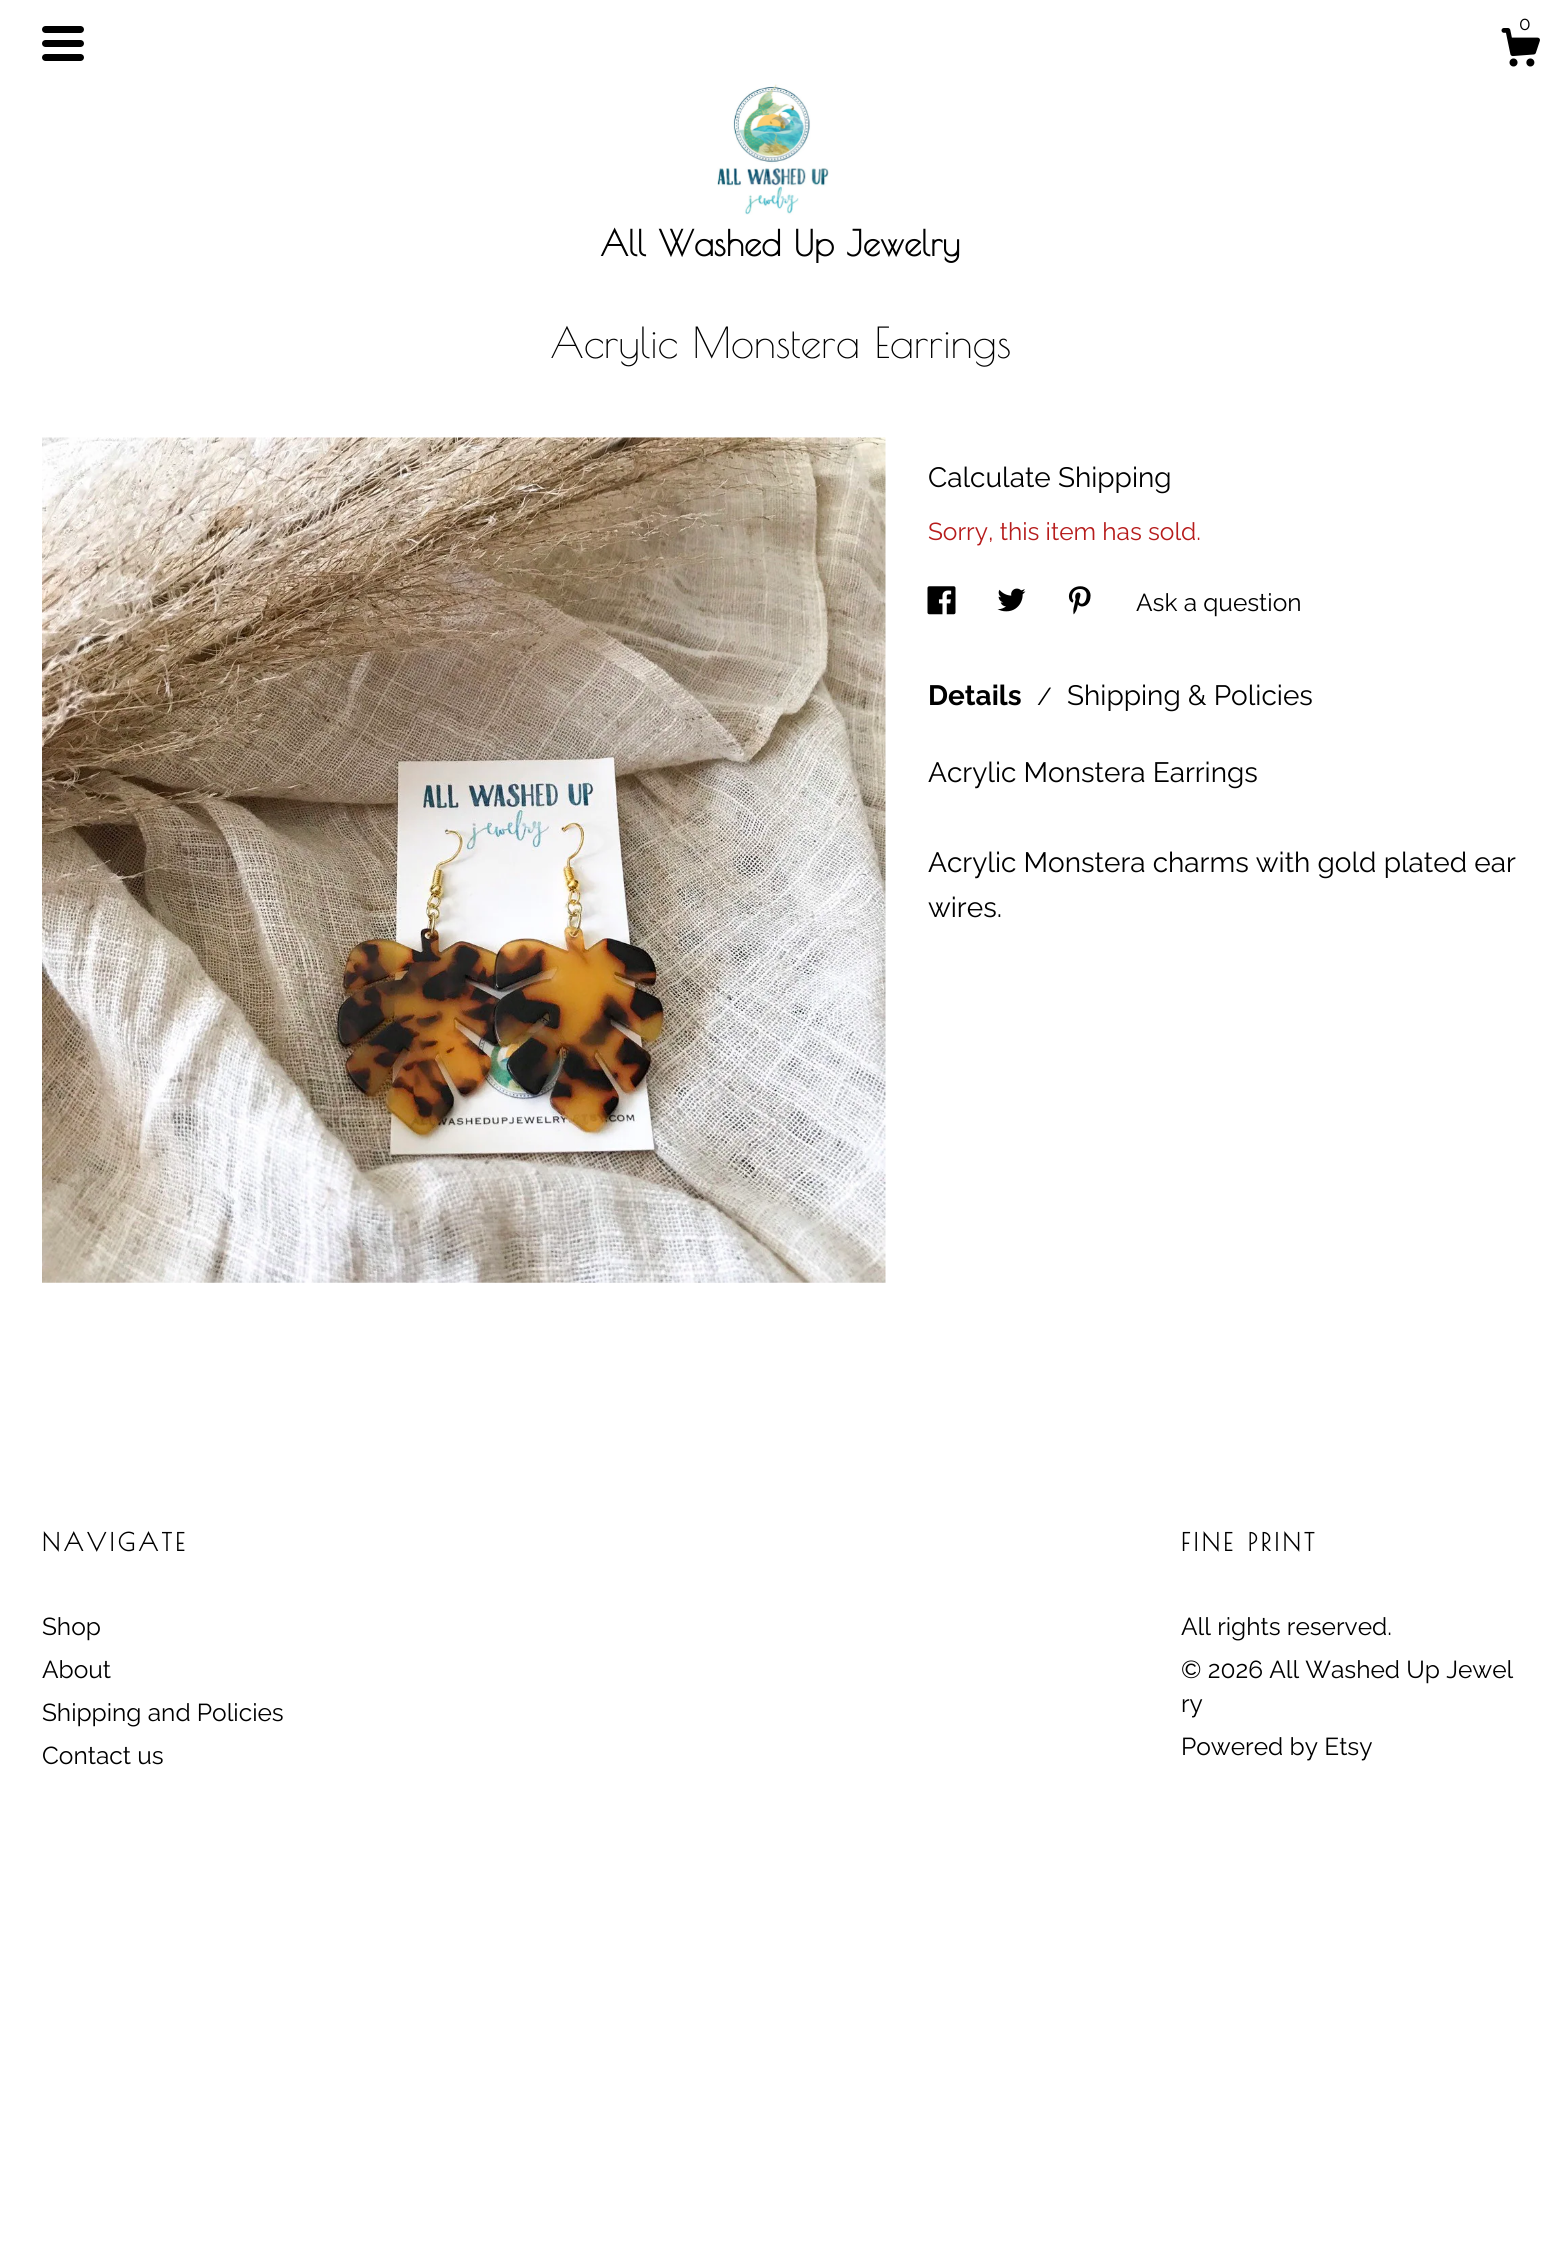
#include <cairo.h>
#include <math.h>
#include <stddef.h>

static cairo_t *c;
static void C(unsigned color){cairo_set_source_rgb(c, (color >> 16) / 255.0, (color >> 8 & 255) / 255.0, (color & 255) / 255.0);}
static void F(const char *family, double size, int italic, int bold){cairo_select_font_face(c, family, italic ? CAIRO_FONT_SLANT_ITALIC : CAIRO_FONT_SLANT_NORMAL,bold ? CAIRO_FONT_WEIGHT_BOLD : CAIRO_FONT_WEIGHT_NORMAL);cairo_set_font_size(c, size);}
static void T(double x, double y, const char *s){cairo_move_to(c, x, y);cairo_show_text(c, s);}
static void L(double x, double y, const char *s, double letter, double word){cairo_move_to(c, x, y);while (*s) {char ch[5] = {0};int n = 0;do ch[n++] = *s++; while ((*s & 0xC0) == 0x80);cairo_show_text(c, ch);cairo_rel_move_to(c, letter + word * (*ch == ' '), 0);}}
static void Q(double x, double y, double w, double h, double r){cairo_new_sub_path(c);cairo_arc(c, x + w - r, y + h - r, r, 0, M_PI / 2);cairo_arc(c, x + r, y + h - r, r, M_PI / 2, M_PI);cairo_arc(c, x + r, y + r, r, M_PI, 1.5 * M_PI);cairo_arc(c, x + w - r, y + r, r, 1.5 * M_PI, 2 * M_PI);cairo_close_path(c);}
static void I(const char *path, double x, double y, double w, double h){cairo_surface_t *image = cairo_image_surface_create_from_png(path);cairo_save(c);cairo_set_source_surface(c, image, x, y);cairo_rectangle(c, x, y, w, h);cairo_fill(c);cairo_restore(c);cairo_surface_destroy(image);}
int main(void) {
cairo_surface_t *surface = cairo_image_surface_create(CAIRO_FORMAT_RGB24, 1561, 2243);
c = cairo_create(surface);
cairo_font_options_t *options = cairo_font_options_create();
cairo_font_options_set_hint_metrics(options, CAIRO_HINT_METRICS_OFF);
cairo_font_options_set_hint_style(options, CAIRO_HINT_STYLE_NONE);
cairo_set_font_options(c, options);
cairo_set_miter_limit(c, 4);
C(0xffffff);
cairo_paint(c);
I("1.png",1501,28,39,39);
F("Raleway",19,0,0);
C(0x000000);
T(1519,30,"0");
Q(42,26,42,7,3.5);
cairo_fill(c);
Q(42,40,42,7,3.5);
cairo_fill(c);
Q(42,54,42,7,3.5);
cairo_fill(c);
I("2.png",717,84,112,131);
F("Poiret One",35,0,1);
T(600,256,"All Washed Up Jewelry");
F("Poiret One",42,0,0);
T(550,358,"Acrylic Monstera Earrings");
I("3.png",42,437,844,846);
F("Raleway",28,0,0);
T(928,487,"Calculate Shipping");
F("Raleway",24.5,0,0);
C(0xb71c1c);
T(928,540,"Sorry, this item has sold.");
I("4.png",927,586,29,29);
I("5.png",997,588,29,24);
I("6.png",1068,586,23,29);
C(0x000000);
T(1136,611,"Ask a question");
F("Raleway",28,0,1);
T(928,705,"Details");
F("Raleway",24.5,0,0);
T(1037,705,"/");
F("Raleway",28,0,0);
T(1067,705,"Shipping & Policies");
T(928,782,"Acrylic Monstera Earrings");
T(928,872,"Acrylic Monstera charms with gold plated ear");
T(928,917,"wires.");
F("Poiret One",24.5,0,1);
L(42,1551,"NAVIGATE",3.5,0);
F("Raleway",24.5,0,0);
T(42,1635,"Shop");
T(42,1678,"About");
T(42,1721,"Shipping and Policies");
T(42,1764,"Contact us");
F("Poiret One",24.5,0,1);
L(1181,1551,"FINE PRINT",3.5,0);
F("Raleway",24.5,0,0);
T(1181,1635,"All rights reserved.");
T(1181,1678,"© 2026 All Washed Up Jewel");
T(1181,1712,"ry");
T(1181,1755,"Powered by Etsy");
cairo_surface_write_to_png(surface, "o.png");
cairo_font_options_destroy(options);
cairo_destroy(c);
cairo_surface_destroy(surface);
return 0;
}
